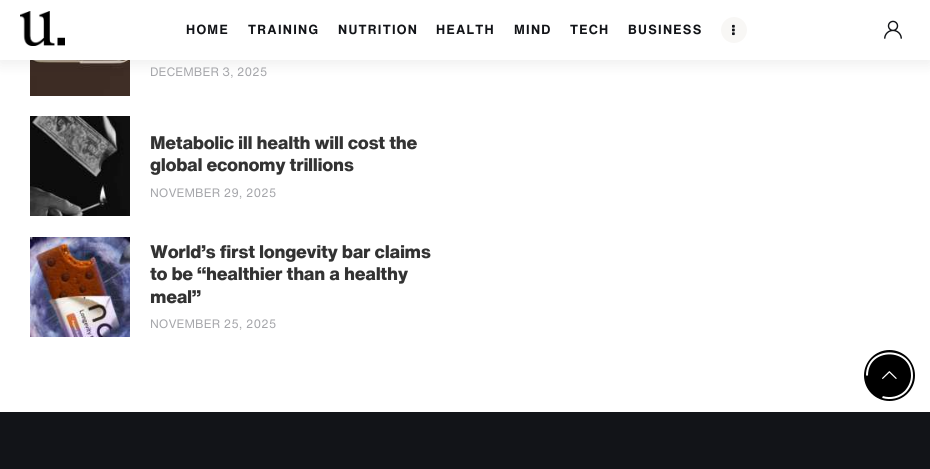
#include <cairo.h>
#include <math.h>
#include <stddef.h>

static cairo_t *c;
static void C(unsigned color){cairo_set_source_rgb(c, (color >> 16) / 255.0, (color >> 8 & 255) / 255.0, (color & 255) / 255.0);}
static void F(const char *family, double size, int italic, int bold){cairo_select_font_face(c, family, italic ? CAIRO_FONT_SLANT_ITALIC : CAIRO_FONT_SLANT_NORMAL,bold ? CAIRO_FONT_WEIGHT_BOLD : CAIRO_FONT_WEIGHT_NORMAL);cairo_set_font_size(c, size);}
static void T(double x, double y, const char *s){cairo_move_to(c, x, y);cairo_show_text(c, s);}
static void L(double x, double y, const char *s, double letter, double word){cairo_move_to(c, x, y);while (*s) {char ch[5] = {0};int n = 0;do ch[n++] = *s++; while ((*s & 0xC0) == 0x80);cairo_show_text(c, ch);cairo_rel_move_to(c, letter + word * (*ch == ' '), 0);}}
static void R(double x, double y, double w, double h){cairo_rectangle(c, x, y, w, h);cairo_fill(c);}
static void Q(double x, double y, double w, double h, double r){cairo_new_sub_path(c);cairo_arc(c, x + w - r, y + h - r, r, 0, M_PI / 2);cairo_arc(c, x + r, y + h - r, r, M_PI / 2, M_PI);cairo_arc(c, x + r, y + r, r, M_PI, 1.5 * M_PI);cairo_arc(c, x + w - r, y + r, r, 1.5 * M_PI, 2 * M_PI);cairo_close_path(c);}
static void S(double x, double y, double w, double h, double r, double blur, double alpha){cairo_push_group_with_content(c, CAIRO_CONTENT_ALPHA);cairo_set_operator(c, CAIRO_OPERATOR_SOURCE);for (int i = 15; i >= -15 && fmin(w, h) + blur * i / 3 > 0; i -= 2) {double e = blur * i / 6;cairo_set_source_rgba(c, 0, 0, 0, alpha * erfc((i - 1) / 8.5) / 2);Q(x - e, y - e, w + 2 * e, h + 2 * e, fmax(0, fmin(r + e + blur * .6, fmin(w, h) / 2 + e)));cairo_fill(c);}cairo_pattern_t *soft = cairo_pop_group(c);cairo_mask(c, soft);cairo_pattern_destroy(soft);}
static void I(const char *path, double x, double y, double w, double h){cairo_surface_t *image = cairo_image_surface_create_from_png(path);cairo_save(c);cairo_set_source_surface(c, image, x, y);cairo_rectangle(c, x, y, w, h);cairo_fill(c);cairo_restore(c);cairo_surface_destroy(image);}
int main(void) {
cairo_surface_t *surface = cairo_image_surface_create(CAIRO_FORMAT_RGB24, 930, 469);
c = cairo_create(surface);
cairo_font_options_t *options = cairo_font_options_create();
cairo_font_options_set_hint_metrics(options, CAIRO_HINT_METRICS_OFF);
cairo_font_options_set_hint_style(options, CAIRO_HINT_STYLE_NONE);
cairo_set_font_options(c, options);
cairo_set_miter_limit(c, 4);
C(0xffffff);
cairo_paint(c);
I("4.png",30,60,100,36);
C(0x000000);
S(0,3,930,60,0,8,.08);
C(0xffffff);
R(0,0,930,60);
I("1.png",20,11,45,35);
F("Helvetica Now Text",13,0,1);
C(0x121418);
L(186,34,"HOME",1.25,0);
L(248,34,"TRAINING",1.25,0);
L(338,34,"NUTRITION",1.25,0);
L(436,34,"HEALTH",1.25,0);
L(514,34,"MIND",1.25,0);
L(570,34,"TECH",1.25,0);
L(628,34,"BUSINESS",1.25,0);
C(0xf8f7f5);
cairo_new_path(c);
cairo_arc(c,734,30,13,0,2 * M_PI);
cairo_fill(c);
I("2.png",732,24,3,12);
I("3.png",884,20,18,19);
F("Helvetica Now Text",12,0,0);
C(0xa5a6aa);
T(150,76,"DECEMBER 3, 2025");
I("5.png",30,116,100,100);
F("Helvetica Now Text ExtraBold",18,0,0);
C(0x333333);
L(150,149,"Metabolic ill health will cost the",-.35,0);
L(150,171,"global economy trillions",-.35,0);
F("Helvetica Now Text",12,0,0);
C(0xa5a6aa);
T(150,197,"NOVEMBER 29, 2025");
I("6.png",30,237,100,100);
F("Helvetica Now Text ExtraBold",18,0,0);
C(0x333333);
L(150,258,"World’s first longevity bar claims",-.35,0);
L(150,280,"to be “healthier than a healthy",-.35,0);
L(150,303,"meal”",-.35,0);
F("Helvetica Now Text",12,0,0);
C(0xa5a6aa);
T(150,328,"NOVEMBER 25, 2025");
C(0x121418);
R(0,412,930,57);
C(0x000000);
cairo_new_path(c);
cairo_arc(c,889.5,375.5,25.5,0,2 * M_PI);
cairo_fill(c);
cairo_new_path(c);
cairo_move_to(c,867,375.5);
cairo_curve_to(c,867,346,912,346,912,375.5);
cairo_curve_to(c,912,381.5,909.5,387,905.5,391.5);
cairo_curve_to(c,899.5,397.5,890.5,399.5,882.5,397);
C(0xffffff);
cairo_stroke(c);
I("7.png",882,371,15,8);
cairo_surface_write_to_png(surface, "o.png");
cairo_font_options_destroy(options);
cairo_destroy(c);
cairo_surface_destroy(surface);
return 0;
}
